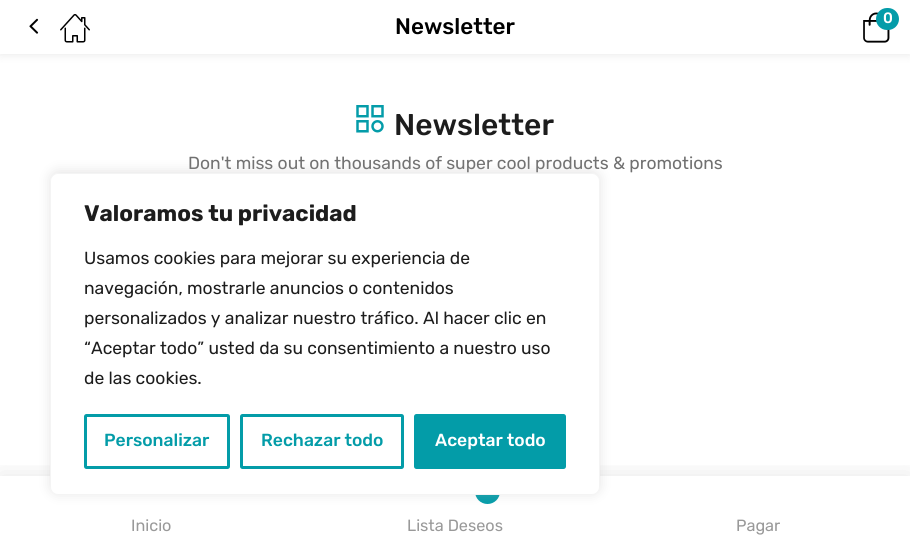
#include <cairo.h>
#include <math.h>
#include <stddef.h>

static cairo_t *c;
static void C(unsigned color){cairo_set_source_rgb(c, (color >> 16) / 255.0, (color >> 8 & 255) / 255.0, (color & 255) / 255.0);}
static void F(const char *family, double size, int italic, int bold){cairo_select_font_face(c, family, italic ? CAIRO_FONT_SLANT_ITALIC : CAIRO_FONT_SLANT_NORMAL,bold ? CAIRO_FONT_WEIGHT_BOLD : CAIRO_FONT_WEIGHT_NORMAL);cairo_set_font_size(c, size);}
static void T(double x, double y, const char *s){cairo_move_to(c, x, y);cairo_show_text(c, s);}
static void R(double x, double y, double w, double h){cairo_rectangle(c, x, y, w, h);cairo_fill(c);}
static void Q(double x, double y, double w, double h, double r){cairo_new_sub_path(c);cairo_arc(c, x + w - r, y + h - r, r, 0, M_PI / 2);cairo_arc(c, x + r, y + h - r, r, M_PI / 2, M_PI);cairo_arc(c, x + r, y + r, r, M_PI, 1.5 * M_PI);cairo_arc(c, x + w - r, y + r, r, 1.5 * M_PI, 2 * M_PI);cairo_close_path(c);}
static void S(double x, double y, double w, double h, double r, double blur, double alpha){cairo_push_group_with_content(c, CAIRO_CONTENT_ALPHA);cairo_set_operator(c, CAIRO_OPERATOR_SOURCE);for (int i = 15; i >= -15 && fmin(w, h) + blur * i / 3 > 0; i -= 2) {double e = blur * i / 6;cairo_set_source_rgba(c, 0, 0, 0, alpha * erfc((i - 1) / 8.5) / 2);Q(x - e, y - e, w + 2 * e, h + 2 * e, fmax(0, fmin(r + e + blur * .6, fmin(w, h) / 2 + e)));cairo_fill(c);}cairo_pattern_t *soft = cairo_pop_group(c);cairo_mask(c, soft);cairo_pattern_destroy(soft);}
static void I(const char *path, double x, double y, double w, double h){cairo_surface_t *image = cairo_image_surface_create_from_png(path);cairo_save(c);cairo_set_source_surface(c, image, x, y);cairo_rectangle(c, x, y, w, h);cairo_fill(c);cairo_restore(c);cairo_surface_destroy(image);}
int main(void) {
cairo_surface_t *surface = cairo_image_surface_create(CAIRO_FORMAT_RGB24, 910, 544);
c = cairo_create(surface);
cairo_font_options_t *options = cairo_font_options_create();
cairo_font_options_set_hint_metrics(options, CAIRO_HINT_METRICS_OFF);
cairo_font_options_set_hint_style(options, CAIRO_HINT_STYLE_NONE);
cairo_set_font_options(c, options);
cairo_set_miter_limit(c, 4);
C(0xffffff);
cairo_paint(c);
C(0x000000);
S(0,0,910,54,0,5,.1);
C(0xffffff);
R(0,0,910,54);
I("1.png",29,18,10,16);
I("2.png",60,14,30,29);
F("Rubik Medium",22.5,0,0);
C(0x000000);
T(395,34,"Newsletter");
I("3.png",863,12,27,31);
C(0x049ca9);
Q(876,8,23,22,11);
cairo_fill(c);
F("Rubik Medium",15,0,0);
C(0xffffff);
T(883,23,"0");
I("4.png",356,105,28,28);
F("Rubik Medium",30,0,0);
C(0x1d1d1d);
T(394,135,"Newsletter");
F("Rubik",17.5,0,0);
C(0x707070);
T(188,169,"Don't miss out on thousands of super cool products & promotions");
cairo_save(c);
cairo_rectangle(c,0,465,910,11);
cairo_clip(c);
C(0x000000);
S(0,476,910,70,0,12.5,.1);
cairo_restore(c);
F("Rubik",16.25,0,0);
C(0x999999);
T(131,531,"Inicio");
C(0x049ca9);
cairo_new_path(c);
cairo_arc(c,487.5,491.5,12.5,0,2 * M_PI);
cairo_fill(c);
C(0x999999);
T(407,531,"Lista Deseos");
T(736,531,"Pagar");
C(0xacabab);
S(50,171,550,323,8,6,.3);
C(0xffffff);
Q(50.5,173.5,549,321,7.5);
cairo_fill_preserve(c);
C(0xf4f4f4);
cairo_set_line_width(c,1);
cairo_stroke(c);
F("Rubik",22.5,0,1);
C(0x1d1d1d);
T(84,221,"Valoramos tu privacidad");
F("Rubik",17.5,0,0);
T(84,264,"Usamos cookies para mejorar su experiencia de");
T(84,294,"navegación, mostrarle anuncios o contenidos");
T(84,324,"personalizados y analizar nuestro tráfico. Al hacer clic en");
T(84,354,"“Aceptar todo” usted da su consentimiento a nuestro uso");
T(84,384,"de las cookies.");
Q(85.5,415.5,143,52,1);
C(0x039ca8);
cairo_set_line_width(c,3);
cairo_stroke(c);
F("Rubik Medium",17.5,0,0);
T(104,446,"Personalizar");
Q(241.5,415.5,161,52,1);
cairo_stroke(c);
T(261,446,"Rechazar todo");
Q(415.5,415.5,149,52,1);
cairo_fill_preserve(c);
cairo_stroke(c);
C(0xffffff);
T(435,446,"Aceptar todo");
cairo_surface_write_to_png(surface, "o.png");
cairo_font_options_destroy(options);
cairo_destroy(c);
cairo_surface_destroy(surface);
return 0;
}
